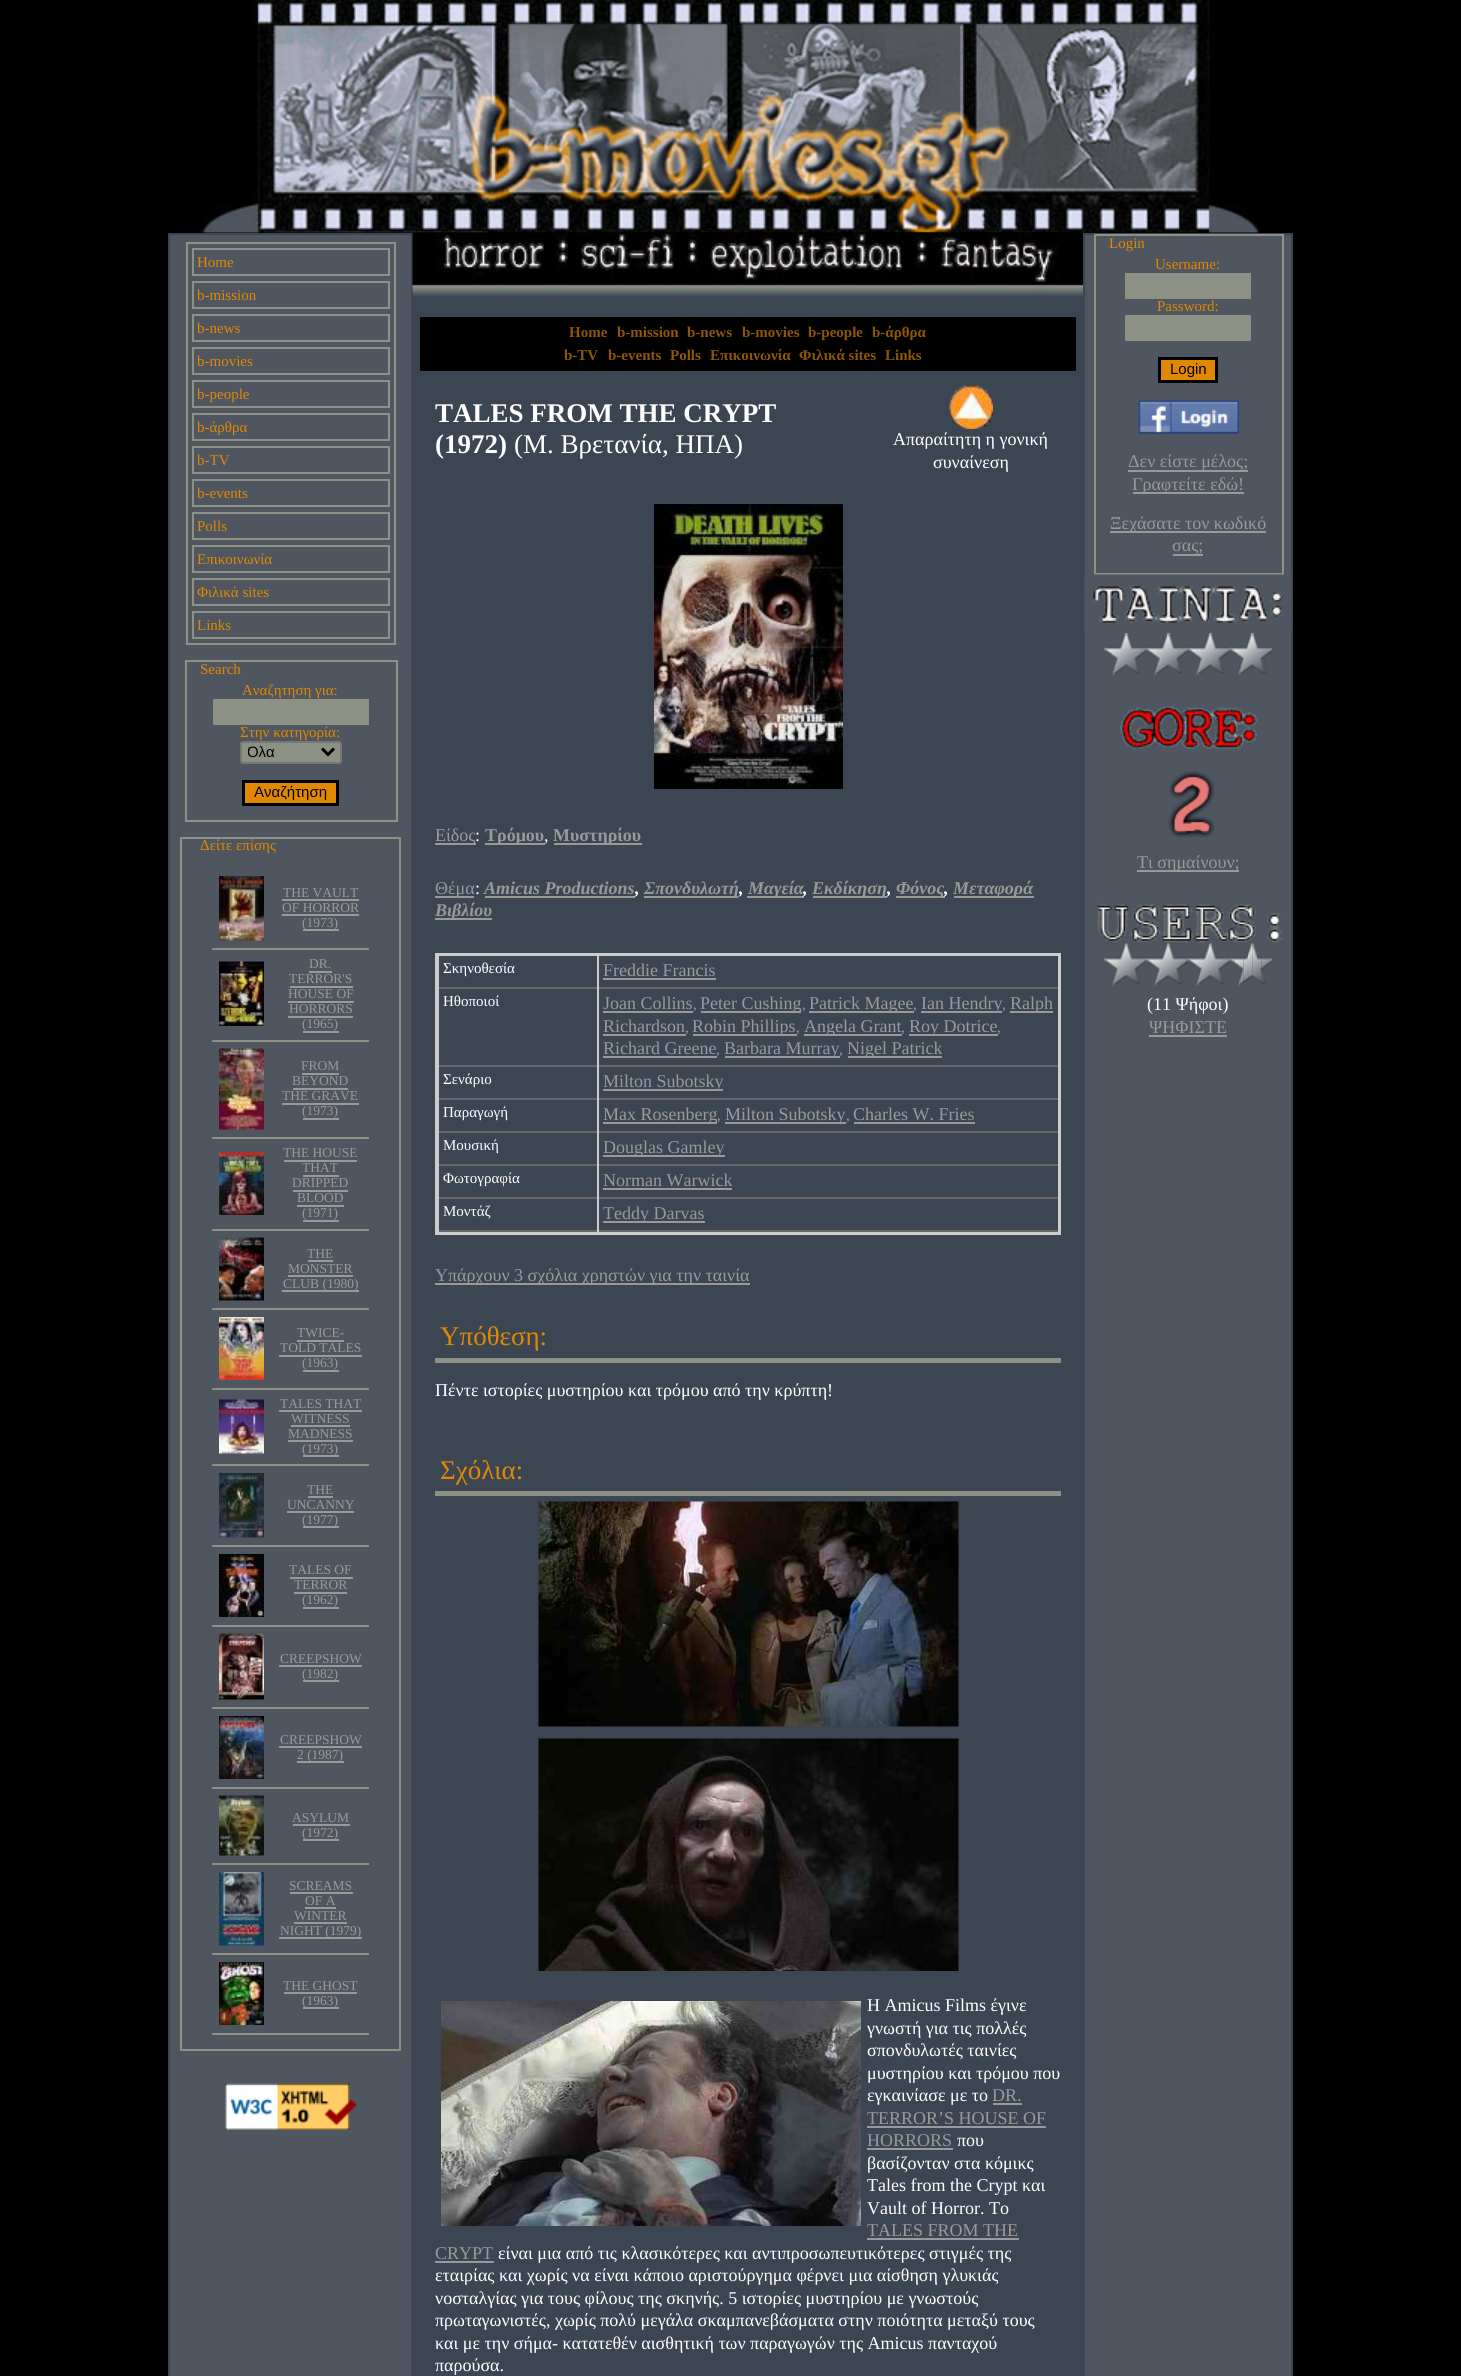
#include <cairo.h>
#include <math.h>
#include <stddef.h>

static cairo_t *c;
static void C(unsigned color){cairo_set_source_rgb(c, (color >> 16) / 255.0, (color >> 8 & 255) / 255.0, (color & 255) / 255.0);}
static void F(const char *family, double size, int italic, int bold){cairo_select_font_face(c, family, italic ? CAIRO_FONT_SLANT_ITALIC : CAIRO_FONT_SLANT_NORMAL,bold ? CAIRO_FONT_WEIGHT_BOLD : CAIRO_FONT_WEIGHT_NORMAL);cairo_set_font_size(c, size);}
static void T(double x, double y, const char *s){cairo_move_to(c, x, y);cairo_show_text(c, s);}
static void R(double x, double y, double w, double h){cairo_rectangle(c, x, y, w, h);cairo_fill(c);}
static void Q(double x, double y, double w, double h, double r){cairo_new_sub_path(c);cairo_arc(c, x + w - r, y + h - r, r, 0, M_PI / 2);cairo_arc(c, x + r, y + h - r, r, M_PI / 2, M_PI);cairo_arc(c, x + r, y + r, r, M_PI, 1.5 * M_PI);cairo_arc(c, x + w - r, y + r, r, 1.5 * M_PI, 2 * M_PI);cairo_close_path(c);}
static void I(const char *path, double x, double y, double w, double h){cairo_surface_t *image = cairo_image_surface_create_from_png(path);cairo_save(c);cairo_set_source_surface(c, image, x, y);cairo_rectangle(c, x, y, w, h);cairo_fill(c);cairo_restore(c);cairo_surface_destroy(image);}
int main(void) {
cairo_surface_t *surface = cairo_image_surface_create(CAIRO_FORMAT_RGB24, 1461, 2376);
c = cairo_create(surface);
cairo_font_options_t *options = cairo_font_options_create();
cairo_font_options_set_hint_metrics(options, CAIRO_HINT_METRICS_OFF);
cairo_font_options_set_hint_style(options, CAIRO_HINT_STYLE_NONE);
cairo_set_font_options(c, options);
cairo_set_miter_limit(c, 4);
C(0x000000);
cairo_paint(c);
I("1.png",192,0,1068,233);
C(0x4f5660);
cairo_rectangle(c,169,234,243,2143);
cairo_fill_preserve(c);
C(0x3c4652);
cairo_stroke(c);
cairo_rectangle(c,187,243,208,401);
C(0x8d9185);
cairo_stroke(c);
cairo_rectangle(c,193,249,196,26);
cairo_stroke(c);
F("Liberation Serif",15,0,0);
C(0xe18800);
T(197,267,"Home");
cairo_rectangle(c,193,282,196,26);
C(0x8d9185);
cairo_stroke(c);
C(0xe18800);
T(197,300,"b-mission");
cairo_rectangle(c,193,315,196,26);
C(0x8d9185);
cairo_stroke(c);
C(0xe18800);
T(197,333,"b-news");
cairo_rectangle(c,193,348,196,26);
C(0x8d9185);
cairo_stroke(c);
C(0xe18800);
T(197,366,"b-movies");
cairo_rectangle(c,193,381,196,26);
C(0x8d9185);
cairo_stroke(c);
C(0xe18800);
T(197,399,"b-people");
cairo_rectangle(c,193,414,196,26);
C(0x8d9185);
cairo_stroke(c);
C(0xe18800);
T(197,432,"b-άρθρα");
cairo_rectangle(c,193,447,196,26);
C(0x8d9185);
cairo_stroke(c);
C(0xe18800);
T(197,465,"b-TV");
cairo_rectangle(c,193,480,196,26);
C(0x8d9185);
cairo_stroke(c);
C(0xe18800);
T(197,498,"b-events");
cairo_rectangle(c,193,513,196,26);
C(0x8d9185);
cairo_stroke(c);
C(0xe18800);
T(197,531,"Polls");
cairo_rectangle(c,193,546,196,26);
C(0x8d9185);
cairo_stroke(c);
C(0xe18800);
T(197,564,"Επικοινωνία");
cairo_rectangle(c,193,579,196,26);
C(0x8d9185);
cairo_stroke(c);
C(0xe18800);
T(197,597,"Φιλικά sites");
cairo_rectangle(c,193,612,196,26);
C(0x8d9185);
cairo_stroke(c);
C(0xe18800);
T(197,630,"Links");
cairo_rectangle(c,186,661,211,160);
C(0x8d9185);
cairo_stroke(c);
C(0xe18800);
T(200,674,"Search");
T(242,695,"Αναζητηση για:");
C(0x8d9185);
R(213,699,156,26);
C(0xe18800);
T(240,737,"Στην κατηγορία:");
C(0x8d9185);
Q(241,742,100,21,2);
cairo_fill_preserve(c);
C(0x767676);
cairo_stroke(c);
cairo_new_path(c);
cairo_move_to(c,322,748.5);
cairo_line_to(c,328,754.5);
cairo_line_to(c,334,748.5);
C(0x000000);
cairo_set_line_width(c,3);
cairo_stroke(c);
cairo_save(c);
cairo_rectangle(c,248,743,69,19);
cairo_clip(c);
F("Liberation Sans",15,0,0);
T(247,757,"Όλα");
cairo_restore(c);
C(0xe18800);
cairo_rectangle(c,243.5,781.5,94,23);
cairo_fill_preserve(c);
C(0x000000);
cairo_stroke(c);
F("Liberation Sans",15,0,0);
T(254,797,"Αναζήτηση");
cairo_rectangle(c,181,838,219,1212);
C(0x8d9185);
cairo_set_line_width(c,2);
cairo_stroke(c);
F("Liberation Serif",15,0,0);
C(0xe18800);
T(200,850,"Δείτε επίσης");
C(0x8d9185);
R(212,948,157,2);
I("2.png",219,876,45,65);
F("Liberation Serif",13.5,0,0);
C(0x999999);
T(283,897,"THE VAULT");
R(282,899,77,2);
T(282,912,"OF HORROR");
R(282,914,77,2);
R(303,929,36,2);
T(302,927,"(1973)");
T(309,968,"DR.");
T(289,983,"TERROR'S");
R(309,971,23,2);
T(288,998,"HOUSE OF");
R(290,986,63,2);
T(289,1013,"HORRORS");
R(288,1001,66,2);
T(302,1028,"(1965)");
R(288,1016,65,2);
R(303,1031,36,2);
C(0x8d9185);
R(212,1040,157,2);
I("3.png",219,961,45,65);
R(212,1137,157,2);
I("4.png",219,1048,45,82);
C(0x999999);
T(301,1070,"FROM");
T(292,1085,"BEYOND");
R(302,1073,37,2);
T(282,1100,"THE GRAVE");
R(293,1088,55,2);
T(302,1115,"(1973)");
R(282,1103,77,2);
R(303,1118,36,2);
T(283,1157,"THE HOUSE");
T(302,1172,"THAT");
R(284,1160,73,2);
T(292,1187,"DRIPPED");
R(303,1175,36,2);
T(297,1202,"BLOOD");
R(293,1190,55,2);
T(302,1217,"(1971)");
R(297,1205,47,2);
R(303,1220,36,2);
C(0x8d9185);
R(212,1229,157,2);
I("5.png",219,1152,45,63);
R(212,1308,157,2);
I("6.png",219,1237,45,64);
C(0x999999);
T(307,1258,"THE");
R(308,1260,25,2);
T(288,1273,"MONSTER");
R(288,1275,65,2);
R(282,1290,77,2);
T(283,1288,"CLUB (1980)");
C(0x8d9185);
R(212,1388,157,2);
I("7.png",219,1317,45,63);
C(0x999999);
T(297,1337,"TWICE-");
T(280,1352,"TOLD TALES");
R(297,1340,47,2);
T(302,1367,"(1963)");
R(279,1355,83,2);
R(303,1370,36,2);
C(0x8d9185);
R(212,1464,157,2);
I("8.png",219,1399,45,55);
C(0x999999);
T(280,1408,"TALES THAT");
R(279,1410,83,2);
T(291,1423,"WITNESS");
R(291,1425,59,2);
T(288,1438,"MADNESS");
R(288,1440,65,2);
R(303,1455,36,2);
T(302,1453,"(1973)");
C(0x8d9185);
R(212,1545,157,2);
I("9.png",219,1473,45,65);
C(0x999999);
T(307,1494,"THE");
R(308,1496,25,2);
T(287,1509,"UNCANNY");
R(287,1511,67,2);
R(303,1526,36,2);
T(302,1524,"(1977)");
C(0x8d9185);
R(212,1625,157,2);
I("10.png",219,1554,45,63);
C(0x999999);
T(289,1574,"TALES OF");
T(294,1589,"TERROR");
R(290,1577,63,2);
T(302,1604,"(1962)");
R(294,1592,53,2);
R(303,1607,36,2);
C(0x8d9185);
R(212,1707,157,2);
I("11.png",219,1633,45,67);
C(0x999999);
T(280,1663,"CREEPSHOW");
R(279,1665,83,2);
R(303,1680,36,2);
T(302,1678,"(1982)");
C(0x8d9185);
R(212,1787,157,2);
I("12.png",219,1716,45,63);
C(0x999999);
T(280,1744,"CREEPSHOW");
R(279,1746,83,2);
R(297,1761,47,2);
T(297,1759,"2 (1987)");
C(0x8d9185);
R(212,1863,157,2);
I("13.png",219,1795,45,61);
C(0x999999);
T(292,1822,"ASYLUM");
R(293,1824,57,2);
R(303,1839,36,2);
T(302,1837,"(1972)");
C(0x8d9185);
R(212,1953,157,2);
I("14.png",219,1872,45,74);
C(0x999999);
T(289,1890,"SCREAMS");
R(290,1892,63,2);
T(305,1905,"OF A");
R(305,1907,31,2);
T(294,1920,"WINTER");
R(294,1922,53,2);
R(279,1937,83,2);
T(280,1935,"NIGHT (1979)");
C(0x8d9185);
R(212,2033,157,2);
I("15.png",219,1962,45,63);
C(0x999999);
T(283,1990,"THE GHOST");
R(284,1992,73,2);
R(303,2007,36,2);
T(302,2005,"(1963)");
I("16.png",225,2083,132,47);
C(0x3c4652);
R(413,296,670,2080);
I("17.png",412,232,671,64);
C(0x000000);
R(420,317,656,54);
F("Liberation Serif",15,0,1);
C(0x8e5703);
T(569,337,"Home");
T(617,337,"b-mission");
T(687,337,"b-news");
T(742,337,"b-movies");
T(808,337,"b-people");
T(872,337,"b-άρθρα");
T(564,360,"b-TV");
T(608,360,"b-events");
T(670,360,"Polls");
T(710,360,"Επικοινωνία");
T(799,360,"Φιλικά sites");
T(885,360,"Links");
F("Liberation Serif",27,0,1);
C(0xffffff);
T(435,422,"TALES FROM THE CRYPT");
T(435,453,"(1972)");
F("Liberation Serif",27,0,0);
T(514,453,"(Μ. Βρετανία, ΗΠΑ)");
I("18.png",949,385,44,44);
F("Liberation Serif",18,0,0);
T(893,445,"Απαραίτητη η γονική");
T(933,468,"συναίνεση");
I("19.png",654,504,189,285);
C(0x999999);
R(435,843,41,2);
T(435,841,"Είδος");
C(0xffffff);
T(475,841,":");
C(0x999999);
R(485,843,60,2);
F("Liberation Serif",18,0,1);
T(485,841,"Τρόμου");
F("Liberation Serif",18,0,0);
C(0xffffff);
T(544,841,",");
C(0x999999);
R(554,843,88,2);
F("Liberation Serif",18,0,1);
T(553,841,"Μυστηρίου");
R(435,896,39,2);
F("Liberation Serif",18,0,0);
T(435,894,"Θέμα");
C(0xffffff);
T(475,894,":");
F("Liberation Serif",18,1,1);
C(0x999999);
T(484,894,"Amicus Productions");
R(485,896,150,2);
C(0xffffff);
T(635,894,",");
C(0x999999);
R(644,896,94,2);
T(644,894,"Σπονδυλωτή");
C(0xffffff);
T(739,894,",");
C(0x999999);
R(747,896,57,2);
T(748,894,"Μαγεία");
C(0xffffff);
T(803,894,",");
C(0x999999);
R(813,896,74,2);
T(812,894,"Εκδίκηση");
C(0xffffff);
T(887,894,",");
C(0x999999);
R(896,896,49,2);
T(896,894,"Φόνος");
C(0xffffff);
T(944,894,",");
C(0x999999);
R(954,896,80,2);
T(953,894,"Μεταφορά");
R(435,918,57,2);
T(435,916,"Βιβλίου");
C(0xcccccc);
R(435,953,626,3);
R(1058,953,3,282);
R(435,1232,626,3);
R(435,953,2,282);
C(0x666666);
R(437,987,621,2);
C(0xcccccc);
R(437,956,2,33);
F("Liberation Serif",15,0,0);
C(0xffffff);
T(443,973,"Σκηνοθεσία");
C(0xcccccc);
R(597,956,2,33);
F("Liberation Serif",18,0,0);
C(0x999999);
T(603,976,"Freddie Francis");
R(603,978,113,2);
C(0x666666);
R(437,1065,621,2);
C(0xcccccc);
R(437,989,2,78);
F("Liberation Serif",15,0,0);
C(0xffffff);
T(443,1006,"Ηθοποιοί");
C(0xcccccc);
R(597,989,2,78);
F("Liberation Serif",18,0,0);
C(0x999999);
T(603,1009,"Joan Collins");
F("Liberation Serif",15,0,0);
T(693,1009,",");
R(603,1011,90,2);
R(701,1011,100,2);
F("Liberation Serif",18,0,0);
T(700,1009,"Peter Cushing");
F("Liberation Serif",15,0,0);
T(802,1009,",");
R(809,1011,105,2);
F("Liberation Serif",18,0,0);
T(809,1009,"Patrick Magee");
F("Liberation Serif",15,0,0);
T(913,1009,",");
R(921,1011,81,2);
F("Liberation Serif",18,0,0);
T(921,1009,"Ian Hendry");
F("Liberation Serif",15,0,0);
T(1002,1009,",");
R(1010,1011,43,2);
F("Liberation Serif",18,0,0);
T(1010,1009,"Ralph");
T(603,1032,"Richardson");
R(603,1034,83,2);
F("Liberation Serif",15,0,0);
T(685,1032,",");
R(693,1034,104,2);
F("Liberation Serif",18,0,0);
T(692,1032,"Robin Phillips");
F("Liberation Serif",15,0,0);
T(796,1032,",");
R(804,1034,98,2);
F("Liberation Serif",18,0,0);
T(804,1032,"Angela Grant");
F("Liberation Serif",15,0,0);
T(901,1032,",");
R(909,1034,89,2);
F("Liberation Serif",18,0,0);
T(909,1032,"Roy Dotrice");
F("Liberation Serif",15,0,0);
T(997,1032,",");
F("Liberation Serif",18,0,0);
T(603,1054,"Richard Greene");
F("Liberation Serif",15,0,0);
T(716,1054,",");
R(603,1056,114,2);
R(725,1056,115,2);
F("Liberation Serif",18,0,0);
T(724,1054,"Barbara Murray");
F("Liberation Serif",15,0,0);
T(839,1054,",");
R(848,1056,94,2);
F("Liberation Serif",18,0,0);
T(847,1054,"Nigel Patrick");
C(0x666666);
R(437,1098,621,2);
C(0xcccccc);
R(437,1067,2,33);
F("Liberation Serif",15,0,0);
C(0xffffff);
T(443,1084,"Σενάριο");
C(0xcccccc);
R(597,1067,2,33);
C(0x999999);
R(603,1089,120,2);
F("Liberation Serif",18,0,0);
T(603,1087,"Milton Subotsky");
C(0x666666);
R(437,1131,621,2);
C(0xcccccc);
R(437,1100,2,33);
F("Liberation Serif",15,0,0);
C(0xffffff);
T(443,1117,"Παραγωγή");
C(0xcccccc);
R(597,1100,2,33);
C(0x999999);
R(603,1122,114,2);
F("Liberation Serif",18,0,0);
T(603,1120,"Max Rosenberg");
F("Liberation Serif",15,0,0);
T(717,1120,",");
R(725,1122,121,2);
F("Liberation Serif",18,0,0);
T(725,1120,"Milton Subotsky");
F("Liberation Serif",15,0,0);
T(846,1120,",");
R(854,1122,121,2);
F("Liberation Serif",18,0,0);
T(853,1120,"Charles W. Fries");
C(0x666666);
R(437,1164,621,2);
C(0xcccccc);
R(437,1133,2,33);
F("Liberation Serif",15,0,0);
C(0xffffff);
T(443,1150,"Μουσική");
C(0xcccccc);
R(597,1133,2,33);
C(0x999999);
R(603,1155,122,2);
F("Liberation Serif",18,0,0);
T(603,1153,"Douglas Gamley");
C(0x666666);
R(437,1197,621,2);
C(0xcccccc);
R(437,1166,2,33);
F("Liberation Serif",15,0,0);
C(0xffffff);
T(443,1183,"Φωτογραφία");
C(0xcccccc);
R(597,1166,2,33);
F("Liberation Serif",18,0,0);
C(0x999999);
T(603,1186,"Norman Warwick");
R(603,1188,129,2);
C(0x666666);
R(437,1230,621,2);
C(0xcccccc);
R(437,1199,2,33);
F("Liberation Serif",15,0,0);
C(0xffffff);
T(443,1216,"Μοντάζ");
C(0xcccccc);
R(597,1199,2,33);
C(0x999999);
R(603,1221,102,2);
F("Liberation Serif",18,0,0);
T(603,1219,"Teddy Darvas");
R(435,1283,315,2);
T(435,1281,"Υπάρχουν 3 σχόλια χρηστών για την ταινία");
C(0x8d9185);
R(435,1358,626,5);
F("Liberation Serif",27,0,0);
C(0xe18800);
T(440,1345,"Υπόθεση:");
F("Liberation Serif",18,0,0);
C(0xffffff);
T(435,1396,"Πέντε ιστορίες μυστηρίου και τρόμου από την κρύπτη!");
C(0x8d9185);
R(435,1491,626,5);
F("Liberation Serif",27,0,0);
C(0xe18800);
T(440,1479,"Σχόλια:");
I("20.png",538,1501,421,226);
I("21.png",538,1738,421,233);
I("22.png",441,2001,420,225);
F("Liberation Serif",18,0,0);
C(0xffffff);
T(867,2011,"Η Amicus Films έγινε");
T(867,2034,"γνωστή για τις πολλές");
T(867,2056,"σπονδυλωτές ταινίες");
T(867,2079,"μυστηρίου και τρόμου που");
T(867,2101,"εγκαινίασε με το");
C(0x999999);
T(992,2101,"DR.");
R(993,2103,29,2);
T(867,2124,"TERROR’S HOUSE OF");
R(867,2126,179,2);
T(867,2146,"HORRORS");
R(867,2148,86,2);
C(0xffffff);
T(957,2146,"που");
T(867,2169,"βασίζονταν στα κόμικς");
T(867,2191,"Tales from the Crypt και");
T(867,2214,"Vault of Horror. Το");
C(0x999999);
T(867,2236,"TALES FROM THE");
R(867,2238,152,2);
T(435,2259,"CRYPT");
R(435,2261,59,2);
C(0xffffff);
T(498,2259,"είναι μια από τις κλασικότερες και αντιπροσωπευτικότερες στιγμές της");
T(435,2281,"εταιρίας και χωρίς να είναι κάποιο αριστούργημα φέρνει μια αίσθηση γλυκιάς");
T(435,2304,"νοσταλγίας για τους φίλους της σκηνής. 5 ιστορίες μυστηρίου με γνωστούς");
T(435,2326,"πρωταγωνιστές, χωρίς πολύ μεγάλα σκαμπανεβάσματα στην ποιότητα μεταξύ τους");
T(435,2349,"και με την σήμα- κατατεθέν αισθητική των παραγωγών της Amicus πανταχού");
T(435,2371,"παρούσα.");
C(0x4f5660);
cairo_rectangle(c,1084,234,208,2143);
cairo_fill_preserve(c);
C(0x3c4652);
cairo_stroke(c);
cairo_rectangle(c,1095,235,188,339);
C(0x8d9185);
cairo_stroke(c);
F("Liberation Serif",15,0,0);
C(0xe18800);
T(1109,248,"Login");
T(1155,269,"Username:");
C(0x8d9185);
R(1125,273,126,26);
C(0xe18800);
T(1157,311,"Password:");
C(0x8d9185);
R(1125,315,126,26);
C(0xe18800);
cairo_rectangle(c,1159.5,358.5,57,23);
cairo_fill_preserve(c);
C(0x000000);
cairo_set_line_width(c,3);
cairo_stroke(c);
F("Liberation Sans",15,0,0);
T(1170,374,"Login");
I("23.png",1138,400,101,34);
C(0x999999);
R(1128,470,120,2);
F("Liberation Serif",18,0,0);
T(1128,467,"Δεν είστε μέλος;");
R(1133,492,111,2);
T(1132,490,"Γραφτείτε εδώ!");
R(1110,531,156,2);
T(1110,529,"Ξεχάσατε τον κωδικό");
R(1173,554,30,2);
T(1172,551,"σας;");
I("24.png",1084,574,208,59);
I("25.png",1104,633,42,42);
I("25.png",1146,633,42,42);
I("25.png",1188,633,42,42);
I("25.png",1230,633,42,42);
I("26.png",1120,706,138,43);
I("27.png",1168,771,47,67);
R(1137,870,102,2);
T(1137,868,"Τι σημαίνουν;");
I("28.png",1097,903,186,41);
I("29.png",1104,943,42,43);
I("30.png",1146,943,42,43);
I("31.png",1188,943,42,43);
I("32.png",1230,957,5,6);
I("33.png",1234,957,5,29);
I("34.png",1239,957,5,29);
I("35.png",1243,952,5,32);
I("36.png",1248,943,5,37);
I("37.png",1252,943,5,35);
I("38.png",1257,954,5,29);
I("39.png",1261,957,5,29);
I("40.png",1266,957,6,9);
C(0xffffff);
T(1147,1010,"(11 Ψήφοι)");
C(0x999999);
T(1149,1033,"ΨΗΦΙΣΤΕ");
R(1149,1035,78,2);
cairo_surface_write_to_png(surface, "o.png");
cairo_font_options_destroy(options);
cairo_destroy(c);
cairo_surface_destroy(surface);
return 0;
}
